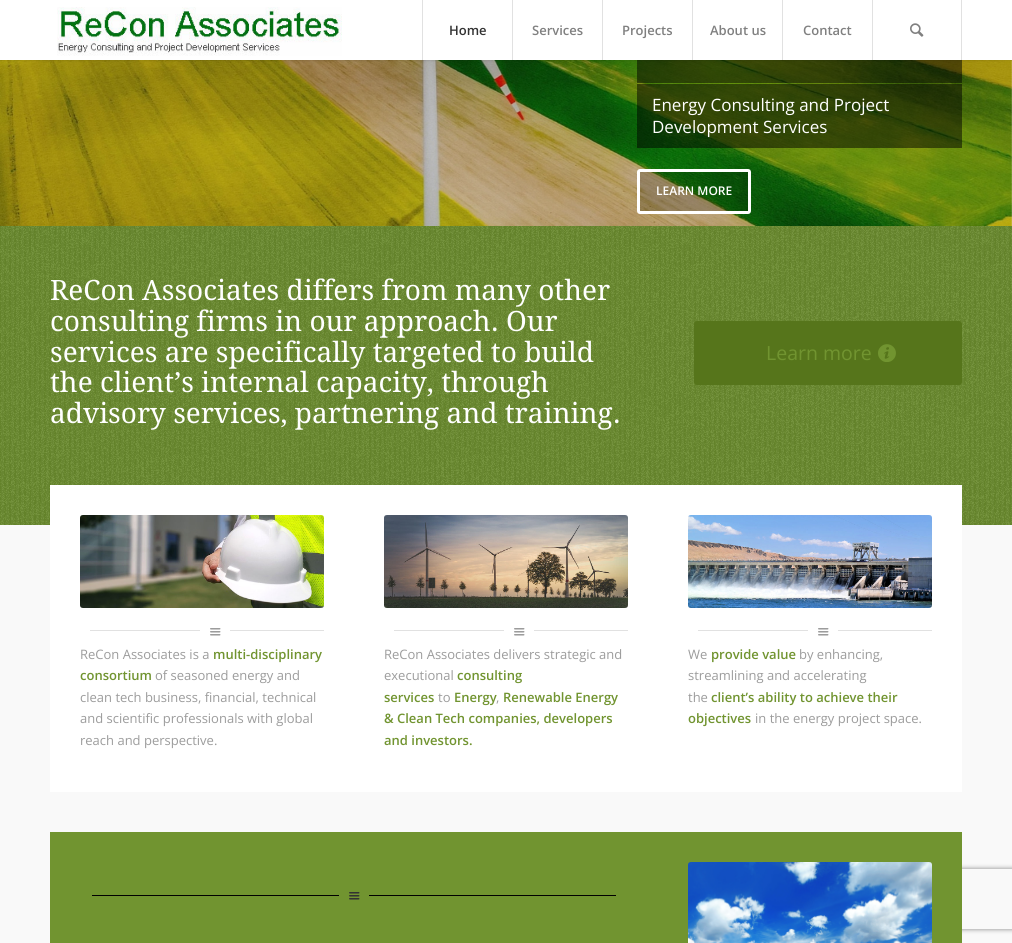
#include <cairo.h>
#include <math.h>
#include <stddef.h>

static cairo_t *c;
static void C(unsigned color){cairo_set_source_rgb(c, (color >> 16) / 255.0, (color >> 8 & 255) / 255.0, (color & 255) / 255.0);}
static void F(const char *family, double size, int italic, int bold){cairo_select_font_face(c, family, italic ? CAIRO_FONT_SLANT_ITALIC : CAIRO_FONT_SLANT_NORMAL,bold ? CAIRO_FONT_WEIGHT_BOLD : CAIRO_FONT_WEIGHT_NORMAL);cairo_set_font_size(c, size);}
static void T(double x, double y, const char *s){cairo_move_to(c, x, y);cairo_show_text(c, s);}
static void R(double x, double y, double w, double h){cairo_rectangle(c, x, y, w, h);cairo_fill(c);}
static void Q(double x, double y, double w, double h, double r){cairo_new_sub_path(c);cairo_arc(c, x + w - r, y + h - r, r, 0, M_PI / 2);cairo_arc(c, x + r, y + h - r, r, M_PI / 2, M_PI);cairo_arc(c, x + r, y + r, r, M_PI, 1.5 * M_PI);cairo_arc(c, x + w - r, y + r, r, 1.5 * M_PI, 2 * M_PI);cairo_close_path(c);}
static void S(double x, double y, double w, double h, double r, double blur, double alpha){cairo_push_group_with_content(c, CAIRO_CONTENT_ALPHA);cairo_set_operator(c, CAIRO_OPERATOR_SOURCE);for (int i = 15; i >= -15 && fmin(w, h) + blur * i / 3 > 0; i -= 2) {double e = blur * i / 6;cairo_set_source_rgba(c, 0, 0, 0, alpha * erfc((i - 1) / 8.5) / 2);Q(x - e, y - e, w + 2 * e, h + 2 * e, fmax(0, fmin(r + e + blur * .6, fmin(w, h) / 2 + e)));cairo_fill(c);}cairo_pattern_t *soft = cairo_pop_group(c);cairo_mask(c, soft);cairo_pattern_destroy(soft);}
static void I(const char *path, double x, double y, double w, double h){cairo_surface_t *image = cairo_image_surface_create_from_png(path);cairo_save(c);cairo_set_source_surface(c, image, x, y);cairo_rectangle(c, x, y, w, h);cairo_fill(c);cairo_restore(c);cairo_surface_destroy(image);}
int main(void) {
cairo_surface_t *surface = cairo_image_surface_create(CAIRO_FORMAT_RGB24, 1012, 943);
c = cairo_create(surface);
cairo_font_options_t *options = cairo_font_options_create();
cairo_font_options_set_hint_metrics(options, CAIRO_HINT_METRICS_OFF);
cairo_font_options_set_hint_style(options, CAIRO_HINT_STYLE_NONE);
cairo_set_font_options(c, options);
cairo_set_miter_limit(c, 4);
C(0xffffff);
cairo_paint(c);
I("3.png",0,60,1012,166);
cairo_set_source_rgba(c,0,0,0,0.5);
R(637,60,325,23);
C(0x000000);
S(-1,-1,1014,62,0,1,.1);
C(0xffffff);
R(0,0,1012,60);
I("1.png",57,7,285,49);
C(0xe1e1e1);
R(422,0,1,60);
F("Open Sans SemiBold",13,0,0);
C(0x333333);
T(449,35,"Home");
C(0xe1e1e1);
R(512,0,1,60);
C(0x808080);
T(532,35,"Services");
C(0xe1e1e1);
R(602,0,1,60);
C(0x808080);
T(622,35,"Projects");
C(0xe1e1e1);
R(692,0,1,60);
C(0x808080);
T(710,35,"About us");
C(0xe1e1e1);
R(782,0,1,60);
C(0x808080);
T(803,35,"Contact");
C(0xe1e1e1);
R(961,0,1,60);
R(872,0,1,60);
I("2.png",910,23,14,14);
cairo_set_source_rgba(c,0,0,0,0.5);
R(637,84,325,64);
F("Open Sans",17,0,0);
C(0xffffff);
T(652,111,"Energy Consulting and Project");
T(652,133,"Development Services");
cairo_set_source_rgba(c,0,0,0,0.2);
Q(638.5,170.5,111,42,1.5);
cairo_fill_preserve(c);
C(0xffffff);
cairo_set_line_width(c,3);
cairo_stroke(c);
F("Open Sans SemiBold",12,0,0);
T(656,195,"LEARN MORE");
C(0x719430);
R(0,226,1012,299);
I("4.png",0,226,1012,299);
F("Droid Serif",28,0,0);
C(0xffffff);
T(50,300,"ReCon Associates differs from many other");
T(50,331,"consulting firms in our approach. Our");
T(50,362,"services are specifically targeted to build");
T(50,392,"the client’s internal capacity, through");
T(50,423,"advisory services, partnering and training.");
C(0x56751b);
Q(694,321,268,64,3);
cairo_fill(c);
F("Open Sans",19.5,0,0);
C(0x719430);
T(766,360,"Learn more");
I("5.png",878,344,18,18);
C(0xf9f9f9);
R(0,525,1012,418);
C(0xffffff);
R(50,485,912,307);
I("6.png",80,515,244,93);
C(0xe1e1e1);
R(90,630,110,1);
I("7.png",210,628,11,8);
R(230,630,94,1);
F("Open Sans",13,0,0);
C(0x9c9c9c);
T(80,659,"ReCon Associates is a");
F("Open Sans SemiBold",13,0,0);
C(0x719430);
T(213,659,"multi-disciplinary");
T(80,680,"consortium");
F("Open Sans",13,0,0);
C(0x9c9c9c);
T(155,680,"of seasoned energy and");
T(80,702,"clean tech business, financial, technical");
T(80,723,"and scientific professionals with global");
T(80,745,"reach and perspective.");
I("8.png",384,515,244,93);
C(0xe1e1e1);
R(394,630,110,1);
I("7.png",514,628,11,8);
R(534,630,94,1);
C(0x9c9c9c);
T(384,659,"ReCon Associates delivers strategic and");
T(384,680,"executional");
F("Open Sans SemiBold",13,0,0);
C(0x719430);
T(457,680,"consulting");
T(384,702,"services");
F("Open Sans",13,0,0);
C(0x9c9c9c);
T(438,702,"to");
F("Open Sans SemiBold",13,0,0);
C(0x719430);
T(454,702,"Energy");
F("Open Sans",13,0,0);
C(0x9c9c9c);
T(496,702,",");
F("Open Sans SemiBold",13,0,0);
C(0x719430);
T(503,702,"Renewable Energy");
T(384,723,"& Clean Tech companies, developers");
T(384,745,"and investors.");
I("9.png",688,515,244,93);
C(0xe1e1e1);
R(698,630,110,1);
I("7.png",818,628,11,8);
R(838,630,94,1);
F("Open Sans",13,0,0);
C(0x9c9c9c);
T(688,659,"We");
F("Open Sans SemiBold",13,0,0);
C(0x719430);
T(711,659,"provide value");
F("Open Sans",13,0,0);
C(0x9c9c9c);
T(799,659,"by enhancing,");
T(688,680,"streamlining and accelerating");
T(688,702,"the");
F("Open Sans SemiBold",13,0,0);
C(0x719430);
T(711,702,"client’s ability to achieve their");
T(688,723,"objectives");
F("Open Sans",13,0,0);
C(0x9c9c9c);
T(755,723,"in the energy project space.");
cairo_save(c);
cairo_set_fill_rule(c,CAIRO_FILL_RULE_EVEN_ODD);
cairo_new_path(c);
cairo_move_to(c,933,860);
cairo_line_to(c,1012,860);
cairo_line_to(c,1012,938);
cairo_line_to(c,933,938);
cairo_close_path(c);
cairo_move_to(c,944,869);
cairo_line_to(c,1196,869);
cairo_curve_to(c,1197,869,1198,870,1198,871);
cairo_line_to(c,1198,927);
cairo_curve_to(c,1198,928,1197,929,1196,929);
cairo_line_to(c,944,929);
cairo_curve_to(c,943,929,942,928,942,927);
cairo_line_to(c,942,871);
cairo_curve_to(c,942,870,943,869,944,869);
cairo_close_path(c);
cairo_clip(c);
C(0x808080);
S(942,869,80,60,2,2.5,1);
cairo_restore(c);
C(0x719430);
R(50,832,912,111);
C(0x000000);
R(92,895,247,1);
I("10.png",349,892,11,8);
R(369,895,247,1);
I("11.png",688,862,244,81);
cairo_surface_write_to_png(surface, "o.png");
cairo_font_options_destroy(options);
cairo_destroy(c);
cairo_surface_destroy(surface);
return 0;
}
